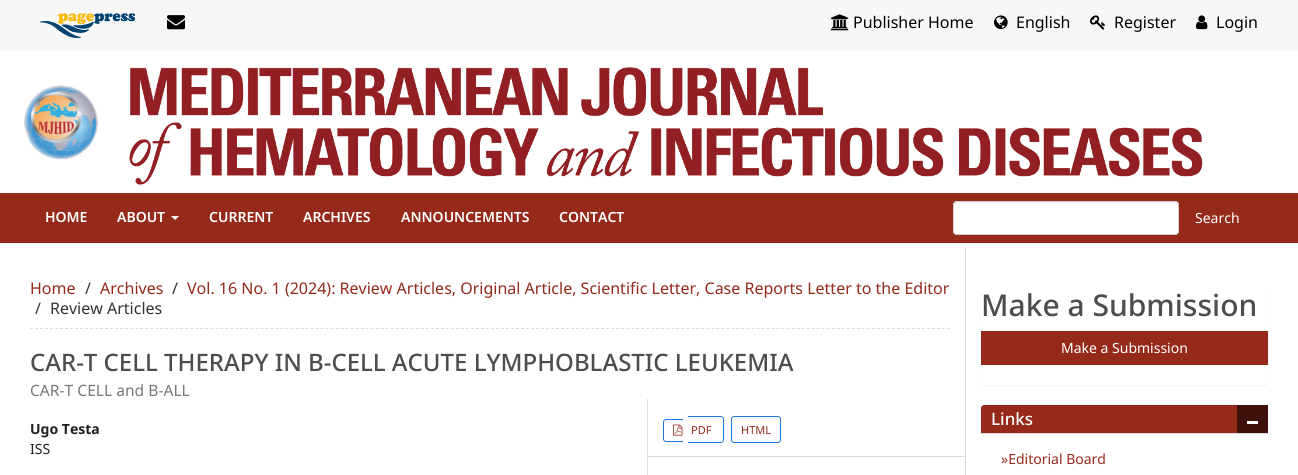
#include <cairo.h>
#include <math.h>
#include <stddef.h>

static cairo_t *c;
static void C(unsigned color){cairo_set_source_rgb(c, (color >> 16) / 255.0, (color >> 8 & 255) / 255.0, (color & 255) / 255.0);}
static void F(const char *family, double size, int italic, int bold){cairo_select_font_face(c, family, italic ? CAIRO_FONT_SLANT_ITALIC : CAIRO_FONT_SLANT_NORMAL,bold ? CAIRO_FONT_WEIGHT_BOLD : CAIRO_FONT_WEIGHT_NORMAL);cairo_set_font_size(c, size);}
static void T(double x, double y, const char *s){cairo_move_to(c, x, y);cairo_show_text(c, s);}
static void R(double x, double y, double w, double h){cairo_rectangle(c, x, y, w, h);cairo_fill(c);}
static void Q(double x, double y, double w, double h, double r){cairo_new_sub_path(c);cairo_arc(c, x + w - r, y + h - r, r, 0, M_PI / 2);cairo_arc(c, x + r, y + h - r, r, M_PI / 2, M_PI);cairo_arc(c, x + r, y + r, r, M_PI, 1.5 * M_PI);cairo_arc(c, x + w - r, y + r, r, 1.5 * M_PI, 2 * M_PI);cairo_close_path(c);}
static void S(double x, double y, double w, double h, double r, double blur, double alpha){cairo_push_group_with_content(c, CAIRO_CONTENT_ALPHA);cairo_set_operator(c, CAIRO_OPERATOR_SOURCE);for (int i = 15; i >= -15 && fmin(w, h) + blur * i / 3 > 0; i -= 2) {double e = blur * i / 6;cairo_set_source_rgba(c, 0, 0, 0, alpha * erfc((i - 1) / 8.5) / 2);Q(x - e, y - e, w + 2 * e, h + 2 * e, fmax(0, fmin(r + e + blur * .6, fmin(w, h) / 2 + e)));cairo_fill(c);}cairo_pattern_t *soft = cairo_pop_group(c);cairo_mask(c, soft);cairo_pattern_destroy(soft);}
static void I(const char *path, double x, double y, double w, double h){cairo_surface_t *image = cairo_image_surface_create_from_png(path);cairo_save(c);cairo_set_source_surface(c, image, x, y);cairo_rectangle(c, x, y, w, h);cairo_fill(c);cairo_restore(c);cairo_surface_destroy(image);}
int main(void) {
cairo_surface_t *surface = cairo_image_surface_create(CAIRO_FORMAT_RGB24, 1298, 475);
c = cairo_create(surface);
cairo_font_options_t *options = cairo_font_options_create();
cairo_font_options_set_hint_metrics(options, CAIRO_HINT_METRICS_OFF);
cairo_font_options_set_hint_style(options, CAIRO_HINT_STYLE_NONE);
cairo_set_font_options(c, options);
cairo_set_miter_limit(c, 4);
C(0xffffff);
cairo_paint(c);
C(0xf7f7f7);
R(0,0,1298,51);
I("1.png",40,13,95,25);
I("2.png",167,15,18,15);
I("3.png",831,14,18,17);
F("Noto Sans",16,0,0);
C(0x000000);
T(853,28,"Publisher Home");
I("4.png",994,15,14,15);
T(1016,28,"English");
I("5.png",1090,15,15,15);
T(1114,28,"Register");
I("6.png",1196,15,12,15);
T(1216,28,"Login");
I("7.png",24,67,1179,118);
C(0x95291a);
R(0,193,1298,50);
F("Noto Sans SemiBold",14,0,0);
C(0xffffff);
T(45,222,"HOME");
T(117,222,"ABOUT");
cairo_new_path(c);
cairo_move_to(c,171,216);
cairo_line_to(c,179,216);
cairo_line_to(c,175,220);
cairo_close_path(c);
cairo_fill(c);
T(209,222,"CURRENT");
T(303,222,"ARCHIVES");
T(401,222,"ANNOUNCEMENTS");
T(559,222,"CONTACT");
Q(953,201,226,34,4);
cairo_fill(c);
C(0xececec);
cairo_new_path(c);
cairo_move_to(c,957,203);
cairo_line_to(c,1175,203);
cairo_curve_to(c,1177,203,1178,204,1178,206);
cairo_line_to(c,1178,205);
cairo_curve_to(c,1178,203,1177,202,1175,202);
cairo_line_to(c,957,202);
cairo_curve_to(c,955,202,954,203,954,205);
cairo_line_to(c,954,206);
cairo_curve_to(c,954,204,955,203,957,203);
cairo_close_path(c);
cairo_fill(c);
Q(953.5,201.5,225,33,3.5);
C(0xcccccc);
cairo_set_line_width(c,1);
cairo_stroke(c);
F("Noto Sans",14,0,0);
C(0xffffff);
T(1195,223,"Search");
C(0xdddddd);
R(965,248,1,227);
cairo_new_path(c);
cairo_move_to(c,30,328.5);
cairo_line_to(c,950,328.5);
cairo_set_dash(c,(double[]){3,2.01},2,0);
cairo_stroke(c);
F("Noto Sans",16,0,0);
C(0x95291a);
T(30,294,"Home");
C(0x333333);
T(85,294,"/");
C(0x95291a);
T(100,294,"Archives");
C(0x333333);
T(172,294,"/");
C(0x95291a);
T(187,294,"Vol. 16 No. 1 (2024): Review Articles, Original Article, Scientific Letter, Case Reports Letter to the Editor");
C(0x333333);
T(35,314,"/");
T(50,314,"Review Articles");
F("Noto Sans Medium",24,0,0);
C(0x4d4d4d);
T(30,371,"CAR-T CELL THERAPY IN B-CELL ACUTE LYMPHOBLASTIC LEUKEMIA");
F("Noto Sans",15.6,0,0);
C(0x777777);
T(30,396,"CAR-T CELL and B-ALL");
C(0xdddddd);
R(647,399,1,76);
F("Noto Sans",14,0,1);
C(0x212121);
T(30,434,"Ugo Testa");
F("Noto Sans",14,0,0);
T(30,454,"ISS");
C(0xdddddd);
R(648,456,317,1);
C(0x2077db);
cairo_set_fill_rule(c,CAIRO_FILL_RULE_EVEN_ODD);
cairo_new_path(c);
cairo_move_to(c,666,419);
cairo_line_to(c,683,419);
cairo_line_to(c,683,442);
cairo_line_to(c,666,442);
cairo_curve_to(c,664.5,442,663,440.5,663,439);
cairo_line_to(c,663,422);
cairo_curve_to(c,663,420.5,664.5,419,666,419);
cairo_close_path(c);
cairo_move_to(c,666,420);
cairo_line_to(c,683,420);
cairo_line_to(c,683,441);
cairo_line_to(c,666,441);
cairo_curve_to(c,665,441,664,440,664,439);
cairo_line_to(c,664,422);
cairo_curve_to(c,664,421,665,420,666,420);
cairo_close_path(c);
cairo_move_to(c,688,416);
cairo_line_to(c,721,416);
cairo_curve_to(c,722.5,416,724,417.5,724,419);
cairo_line_to(c,724,440);
cairo_curve_to(c,724,441.5,722.5,443,721,443);
cairo_line_to(c,688,443);
cairo_close_path(c);
cairo_move_to(c,688,417);
cairo_line_to(c,721,417);
cairo_curve_to(c,722,417,723,418,723,419);
cairo_line_to(c,723,440);
cairo_curve_to(c,723,441,722,442,721,442);
cairo_line_to(c,688,442);
cairo_close_path(c);
cairo_fill(c);
I("8.png",673,424,10,12);
F("Noto Sans",11,0,0);
C(0x95291a);
T(691,434,"PDF");
Q(731.5,416.5,49,26,2.5);
C(0x2077db);
cairo_set_dash(c,NULL,0,0);
cairo_stroke(c);
C(0x95291a);
T(741,434,"HTML");
C(0x000000);
S(981,289,287,97,4,.5,.05);
C(0xffffff);
Q(981,288,287,97,4);
cairo_fill(c);
F("Noto Sans Medium",30,0,0);
C(0x4d4d4d);
T(981,316,"Make a Submission");
C(0x95291a);
R(981,331,287,34);
F("Noto Sans",14,0,0);
C(0xffffff);
T(1061,353,"Make a Submission");
C(0x95291a);
cairo_new_path(c);
cairo_move_to(c,984,405);
cairo_line_to(c,1265,405);
cairo_curve_to(c,1266.5,405,1268,406.5,1268,408);
cairo_line_to(c,1268,434);
cairo_line_to(c,981,434);
cairo_line_to(c,981,408);
cairo_curve_to(c,981,406.5,982.5,405,984,405);
cairo_close_path(c);
cairo_fill(c);
C(0xdddddd);
R(981,433,287,1);
F("Noto Sans Medium",17,0,0);
C(0xffffff);
T(991,425,"Links");
C(0x3e110b);
R(1237,405,31,28);
C(0xffffff);
R(1247,421,11,3);
F("Noto Sans",14,0,0);
C(0x95291a);
T(1001,464,"»Editorial Board");
cairo_surface_write_to_png(surface, "o.png");
cairo_font_options_destroy(options);
cairo_destroy(c);
cairo_surface_destroy(surface);
return 0;
}
